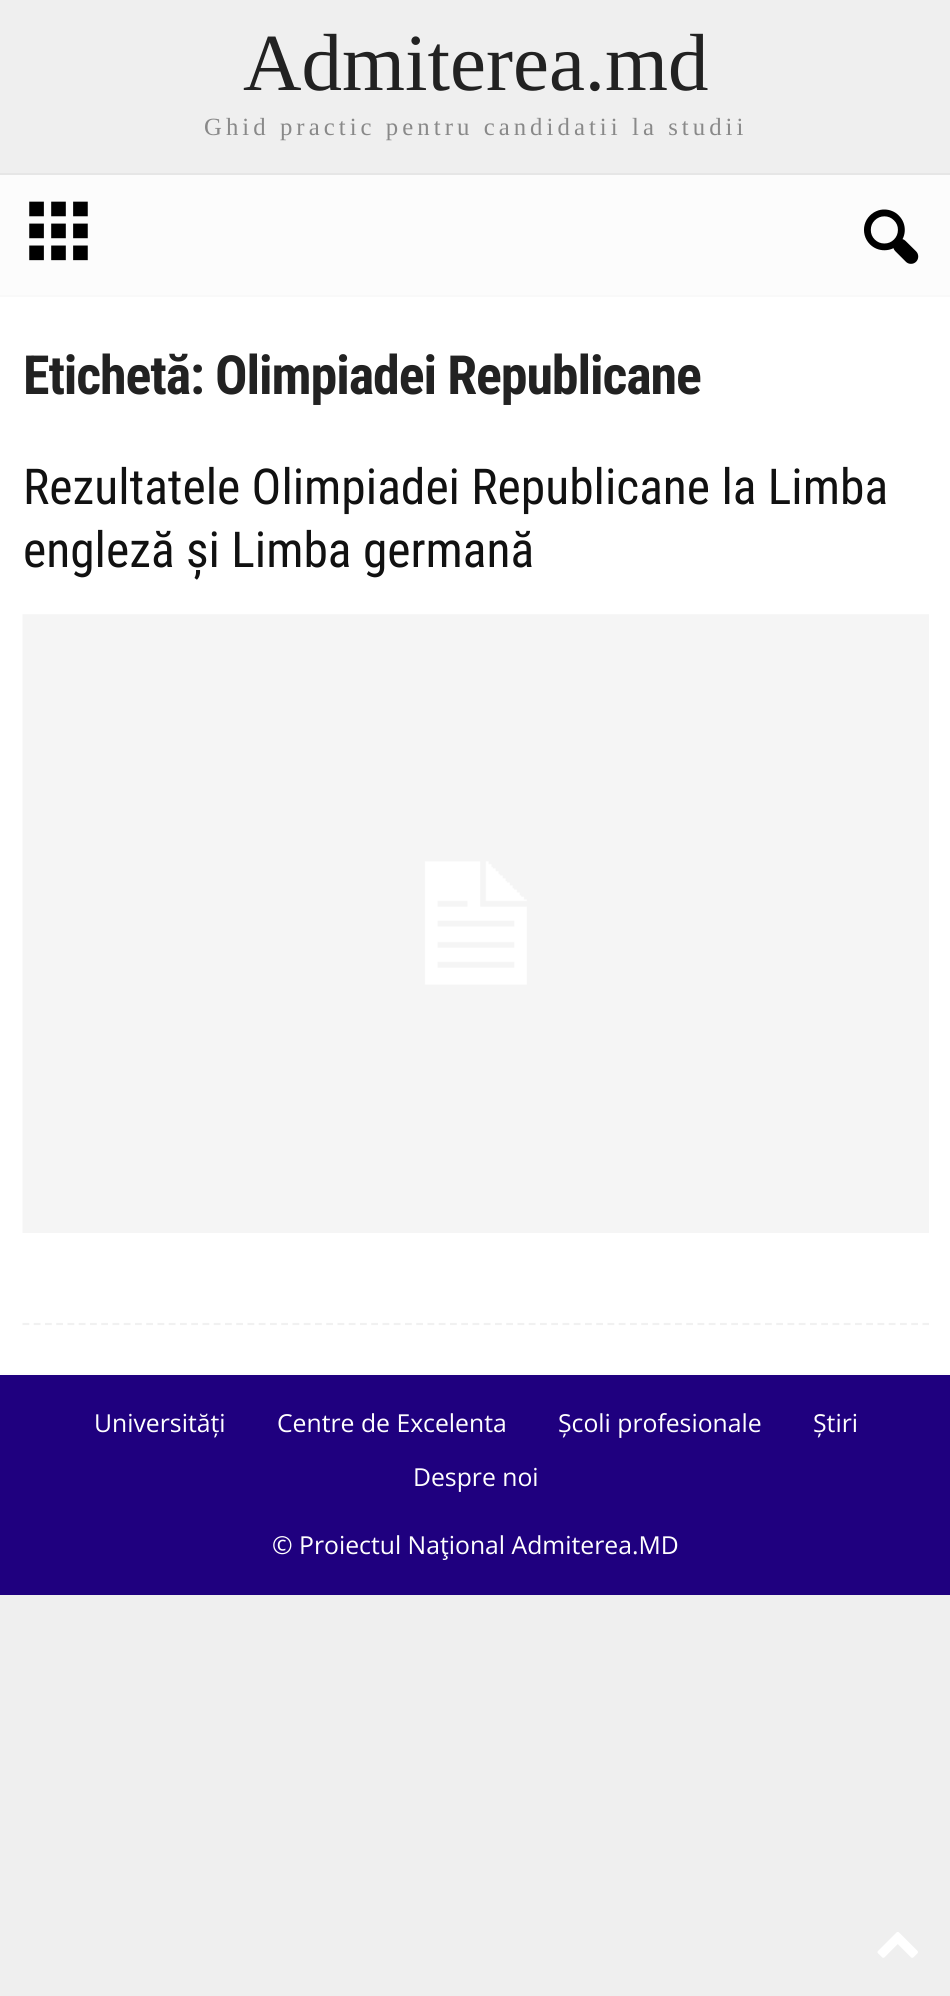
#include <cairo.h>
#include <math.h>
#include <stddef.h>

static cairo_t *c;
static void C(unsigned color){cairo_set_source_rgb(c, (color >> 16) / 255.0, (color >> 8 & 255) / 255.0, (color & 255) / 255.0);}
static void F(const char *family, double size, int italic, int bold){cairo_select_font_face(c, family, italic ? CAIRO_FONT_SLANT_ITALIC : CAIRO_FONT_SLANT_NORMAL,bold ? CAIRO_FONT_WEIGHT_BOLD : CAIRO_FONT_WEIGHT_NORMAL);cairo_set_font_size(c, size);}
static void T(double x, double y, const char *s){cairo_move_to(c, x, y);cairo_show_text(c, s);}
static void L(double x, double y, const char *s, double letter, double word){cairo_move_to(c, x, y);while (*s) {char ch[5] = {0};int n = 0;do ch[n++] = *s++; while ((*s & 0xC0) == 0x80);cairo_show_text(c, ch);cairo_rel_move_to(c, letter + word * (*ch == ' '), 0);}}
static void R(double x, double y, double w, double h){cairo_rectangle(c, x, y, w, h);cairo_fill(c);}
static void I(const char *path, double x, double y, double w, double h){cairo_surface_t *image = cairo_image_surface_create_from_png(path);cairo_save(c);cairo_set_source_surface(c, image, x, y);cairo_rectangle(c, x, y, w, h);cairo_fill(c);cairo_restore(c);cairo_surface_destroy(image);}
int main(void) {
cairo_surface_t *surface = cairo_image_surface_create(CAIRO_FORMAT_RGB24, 950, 1996);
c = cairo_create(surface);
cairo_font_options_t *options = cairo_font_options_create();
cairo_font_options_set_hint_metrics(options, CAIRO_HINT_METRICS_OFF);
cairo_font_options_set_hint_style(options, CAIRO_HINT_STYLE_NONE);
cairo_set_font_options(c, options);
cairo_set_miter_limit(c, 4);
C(0xefefef);
cairo_paint(c);
F("Liberation Serif",81,0,0);
C(0x222222);
T(243,90,"Admiterea.md");
F("Liberation Serif",24.75,0,0);
C(0x898989);
L(204,135,"Ghid practic pentru candidatii la studii",4.05,0);
C(0xfcfcfc);
R(0,175,950,120);
C(0xe6e6e6);
R(0,173,950,2);
C(0xf9f9f9);
R(0,295,950,2);
I("1.png",29,201,59,60);
I("2.png",864,209,55,55);
C(0xffffff);
R(0,297,950,1076);
C(0xfcfcfc);
R(0,1373,950,2);
F("Roboto Condensed",54,0,1);
C(0x222222);
L(23,394,"Etichetă: Olimpiadei Republicane",-1.1,0);
cairo_new_path(c);
cairo_move_to(c,22.5,1324);
cairo_line_to(c,929,1324);
C(0xf1f1f1);
cairo_set_line_width(c,2.2);
cairo_set_dash(c,(double[]){6.75,4.5},2,0);
cairo_stroke(c);
F("Roboto Condensed",49.5,0,0);
C(0x111111);
T(23,504,"Rezultatele Olimpiadei Republicane la Limba");
T(23,567,"engleză și Limba germană");
I("3.png",22,614,907,619);
C(0x1f007f);
R(0,1375,950,220);
F("Open Sans",24.75,0,0);
C(0xffffff);
T(94,1432,"Universități");
T(277,1432,"Centre de Excelenta");
T(558,1432,"Școli profesionale");
T(813,1432,"Știri");
T(413,1486,"Despre noi");
T(272,1554,"© Proiectul Naţional Admiterea.MD");
I("4.png",877,1932,41,26);
cairo_surface_write_to_png(surface, "o.png");
cairo_font_options_destroy(options);
cairo_destroy(c);
cairo_surface_destroy(surface);
return 0;
}
